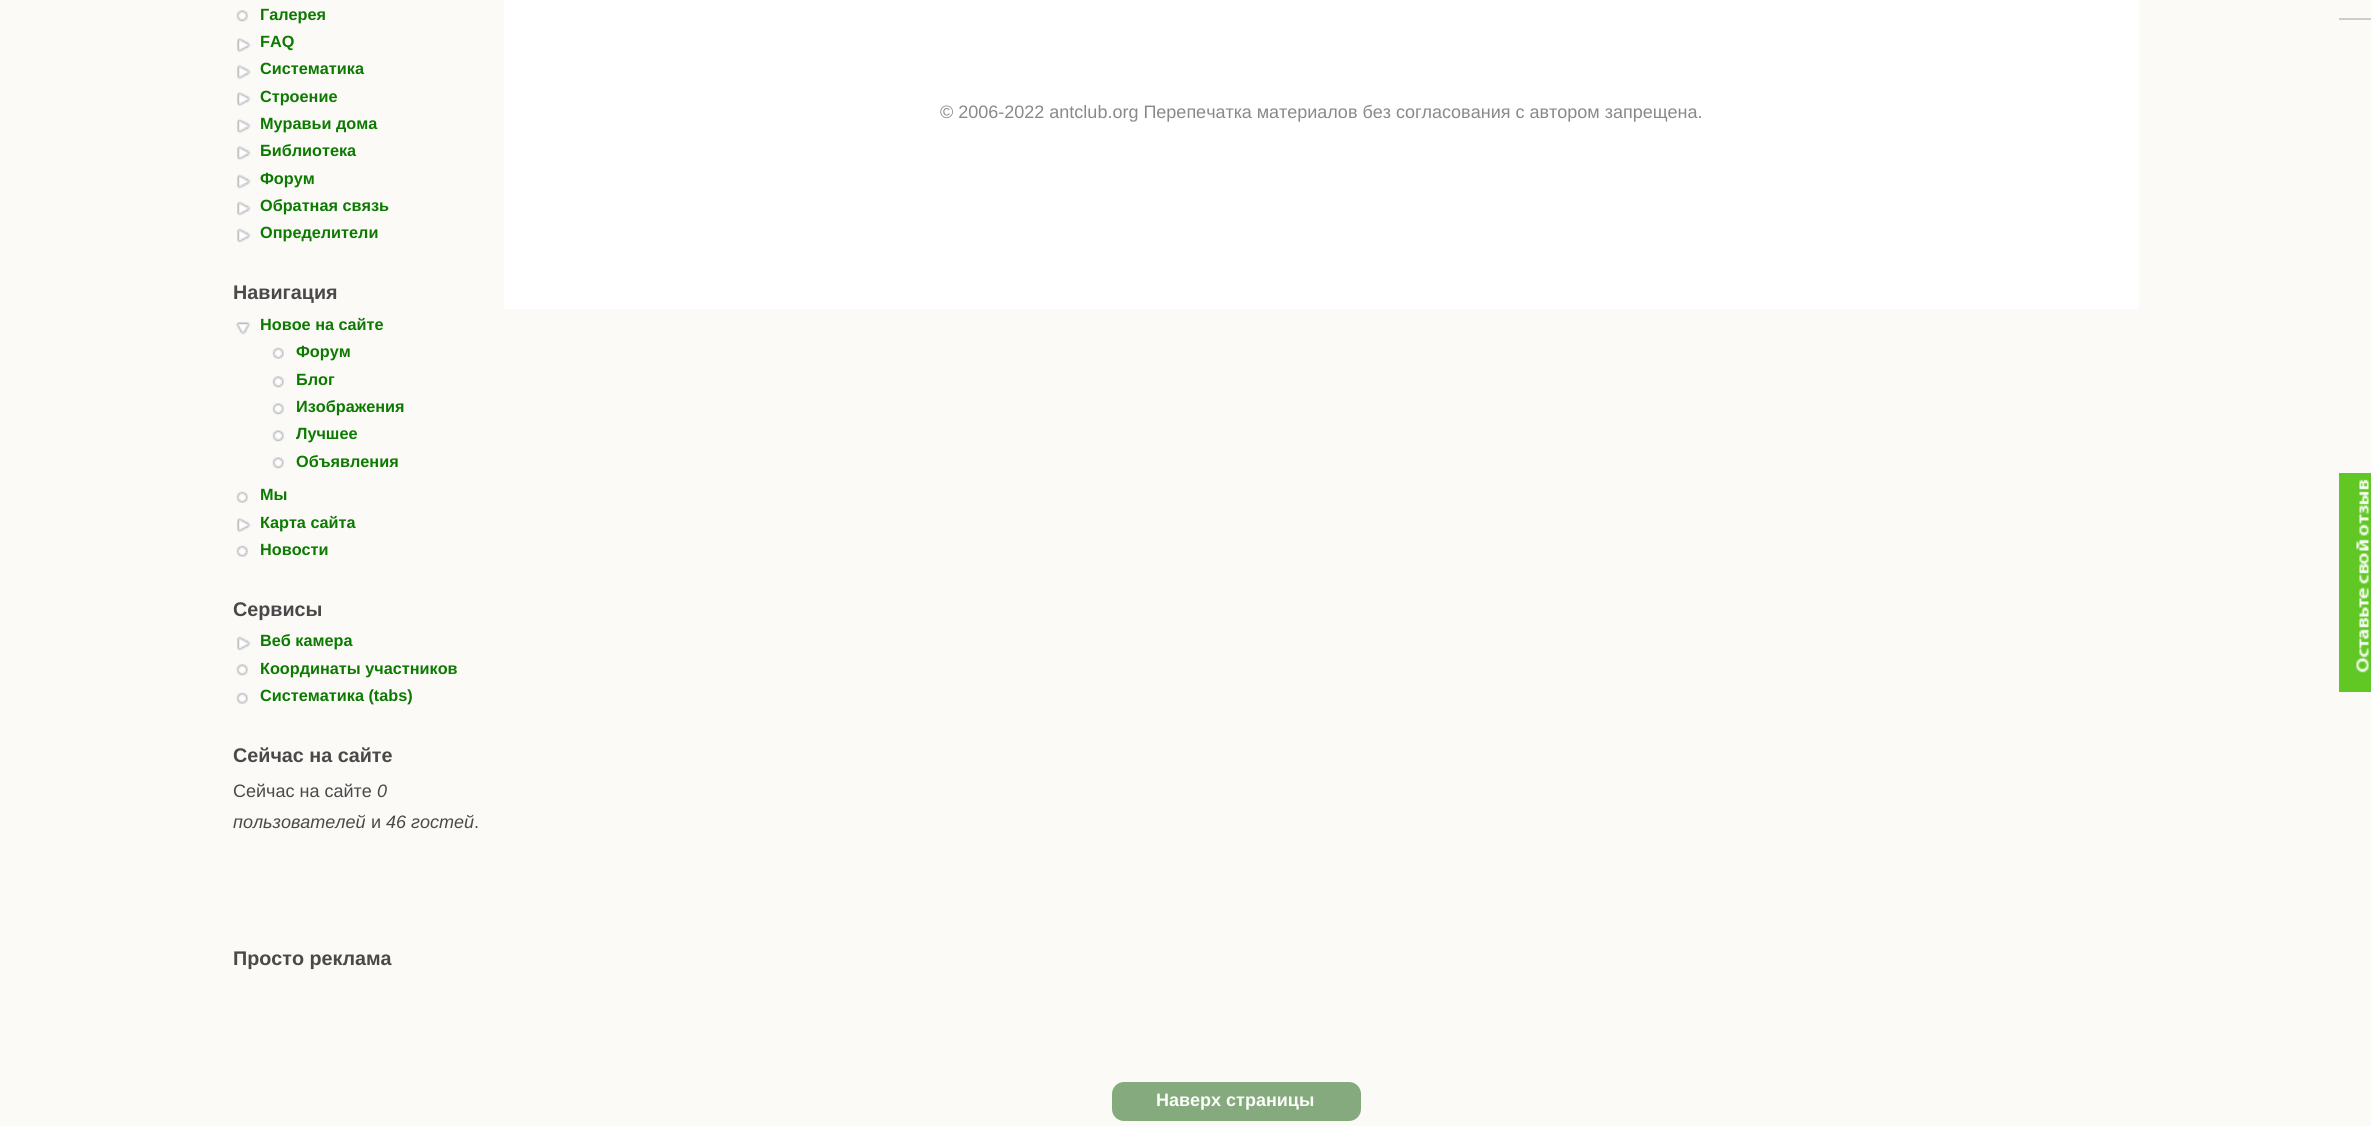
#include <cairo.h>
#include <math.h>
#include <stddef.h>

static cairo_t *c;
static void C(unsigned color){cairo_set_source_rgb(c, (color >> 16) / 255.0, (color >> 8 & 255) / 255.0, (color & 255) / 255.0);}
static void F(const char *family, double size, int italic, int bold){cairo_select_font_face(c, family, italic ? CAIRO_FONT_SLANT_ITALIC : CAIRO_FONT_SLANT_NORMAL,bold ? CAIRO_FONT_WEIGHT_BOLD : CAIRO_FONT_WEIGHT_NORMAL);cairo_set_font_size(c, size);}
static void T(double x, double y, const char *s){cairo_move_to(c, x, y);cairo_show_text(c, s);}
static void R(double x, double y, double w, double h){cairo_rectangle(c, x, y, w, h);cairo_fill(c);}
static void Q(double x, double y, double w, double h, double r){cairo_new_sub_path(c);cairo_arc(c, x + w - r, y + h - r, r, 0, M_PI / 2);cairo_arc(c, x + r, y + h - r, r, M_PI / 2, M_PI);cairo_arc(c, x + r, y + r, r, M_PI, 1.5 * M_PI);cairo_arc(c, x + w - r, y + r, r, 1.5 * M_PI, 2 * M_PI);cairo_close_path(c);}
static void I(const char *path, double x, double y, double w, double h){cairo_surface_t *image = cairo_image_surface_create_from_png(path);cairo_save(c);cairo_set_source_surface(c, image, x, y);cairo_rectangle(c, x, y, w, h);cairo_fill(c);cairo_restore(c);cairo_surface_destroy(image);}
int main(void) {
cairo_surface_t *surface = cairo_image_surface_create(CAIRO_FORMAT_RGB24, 2371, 1126);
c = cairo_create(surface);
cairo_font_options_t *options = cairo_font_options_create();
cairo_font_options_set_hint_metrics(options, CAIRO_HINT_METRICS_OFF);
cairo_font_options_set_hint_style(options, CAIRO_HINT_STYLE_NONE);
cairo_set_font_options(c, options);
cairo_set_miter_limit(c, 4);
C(0xfbfaf7);
cairo_paint(c);
I("1.png",236,10,12,12);
F("Liberation Sans",16.25,0,1);
C(0x0c7a00);
T(260,20,"Галерея");
I("2.png",237,37,14,16);
T(260,47,"FAQ");
I("2.png",237,64,14,16);
T(260,74,"Систематика");
I("2.png",237,91,14,16);
T(260,102,"Строение");
I("2.png",237,118,14,16);
T(260,129,"Муравьи дома");
I("2.png",237,145,14,16);
T(260,156,"Библиотека");
I("3.png",237,174,14,15);
T(260,184,"Форум");
I("3.png",237,201,14,15);
T(260,211,"Обратная связь");
I("3.png",237,228,14,15);
T(260,238,"Определители");
F("Liberation Sans",19.75,0,1);
C(0x494949);
T(233,299,"Навигация");
I("4.png",235,322,16,13);
F("Liberation Sans",16.25,0,1);
C(0x0c7a00);
T(260,330,"Новое на сайте");
I("5.png",272,347,12,12);
T(296,357,"Форум");
I("1.png",272,376,12,12);
T(296,385,"Блог");
I("1.png",272,403,12,12);
T(296,412,"Изображения");
I("1.png",272,430,12,12);
T(296,439,"Лучшее");
I("1.png",272,457,12,12);
T(296,467,"Объявления");
I("5.png",236,491,12,12);
T(260,500,"Мы");
I("2.png",237,517,14,16);
T(260,528,"Карта сайта");
I("5.png",236,545,12,12);
T(260,555,"Новости");
F("Liberation Sans",19.75,0,1);
C(0x494949);
T(233,616,"Сервисы");
I("3.png",237,636,14,15);
F("Liberation Sans",16.25,0,1);
C(0x0c7a00);
T(260,646,"Веб камера");
I("1.png",236,664,12,12);
T(260,674,"Координаты участников");
I("5.png",236,692,12,12);
T(260,701,"Систематика (tabs)");
F("Liberation Sans",19.75,0,1);
C(0x494949);
T(233,762,"Сейчас на сайте");
F("Liberation Sans",18,0,0);
T(233,797,"Сейчас на сайте");
F("Liberation Sans",18,1,0);
T(377,797,"0");
T(233,828,"пользователей");
F("Liberation Sans",18,0,0);
T(371,828,"и");
F("Liberation Sans",18,1,0);
T(386,828,"46 гостей");
F("Liberation Sans",18,0,0);
T(474,828,".");
F("Liberation Sans",19.75,0,1);
T(233,965,"Просто реклама");
C(0xffffff);
R(504,0,1635,309);
F("Liberation Sans",18,0,0);
C(0x898989);
T(940,118,"© 2006-2022 antclub.org Перепечатка материалов без согласования с автором запрещена.");
C(0xcccccc);
R(2339,18,32,2);
C(0x60c724);
R(2339,473,32,219);
I("6.png",2356,479,13,194);
C(0x84aa7e);
Q(1112,1082,249,39,12);
cairo_fill(c);
F("Liberation Sans",18,0,1);
C(0xfdfdfb);
T(1156,1106,"Наверх страницы");
cairo_surface_write_to_png(surface, "o.png");
cairo_font_options_destroy(options);
cairo_destroy(c);
cairo_surface_destroy(surface);
return 0;
}
